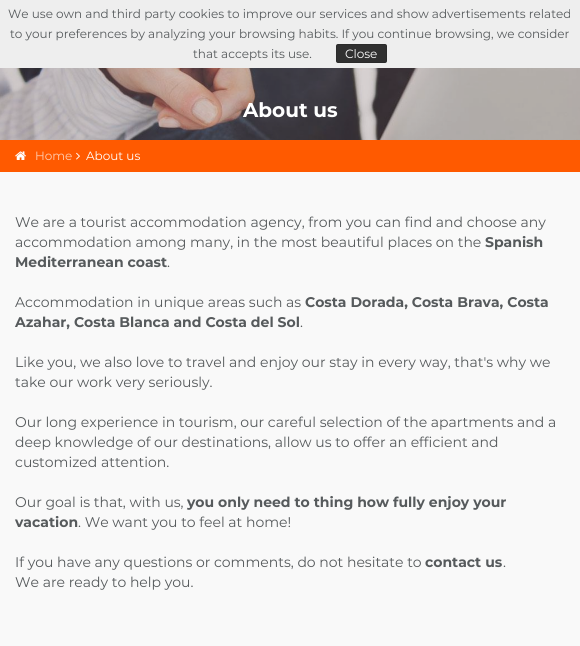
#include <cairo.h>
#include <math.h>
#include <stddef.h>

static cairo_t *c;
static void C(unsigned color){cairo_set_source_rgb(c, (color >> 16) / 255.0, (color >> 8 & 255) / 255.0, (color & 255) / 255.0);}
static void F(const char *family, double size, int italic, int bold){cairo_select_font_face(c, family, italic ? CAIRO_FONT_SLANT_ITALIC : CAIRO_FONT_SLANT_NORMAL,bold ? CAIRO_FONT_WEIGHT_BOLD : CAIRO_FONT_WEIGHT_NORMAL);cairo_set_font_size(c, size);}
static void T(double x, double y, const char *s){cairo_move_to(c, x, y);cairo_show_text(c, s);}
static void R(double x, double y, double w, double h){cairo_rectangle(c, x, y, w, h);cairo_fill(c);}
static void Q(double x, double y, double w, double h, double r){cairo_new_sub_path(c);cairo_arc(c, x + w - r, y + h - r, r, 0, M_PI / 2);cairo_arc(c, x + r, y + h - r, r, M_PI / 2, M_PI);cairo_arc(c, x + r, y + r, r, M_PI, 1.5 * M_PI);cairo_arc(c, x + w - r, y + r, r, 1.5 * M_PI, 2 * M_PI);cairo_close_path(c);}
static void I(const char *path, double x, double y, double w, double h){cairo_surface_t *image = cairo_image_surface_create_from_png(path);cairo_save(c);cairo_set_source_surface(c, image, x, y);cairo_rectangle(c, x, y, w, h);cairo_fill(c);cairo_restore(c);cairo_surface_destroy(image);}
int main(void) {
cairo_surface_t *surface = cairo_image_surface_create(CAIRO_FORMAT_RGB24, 580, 646);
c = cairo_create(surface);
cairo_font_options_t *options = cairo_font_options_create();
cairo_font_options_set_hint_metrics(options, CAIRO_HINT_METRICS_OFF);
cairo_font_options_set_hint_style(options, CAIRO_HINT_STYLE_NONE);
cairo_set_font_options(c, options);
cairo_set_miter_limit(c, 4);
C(0xf9f9f9);
cairo_paint(c);
C(0xeeeeee);
R(0,0,580,68);
F("Montserrat",12,0,0);
C(0x565a5c);
T(8,18,"We use own and third party cookies to improve our services and show advertisements related");
T(10,38,"to your preferences by analyzing your browsing habits. If you continue browsing, we consider");
T(193,58,"that accepts its use.");
C(0x303030);
Q(336,44,51,19,2);
cairo_fill(c);
Q(336.5,44.5,50,18,1.5);
cairo_set_source_rgba(c,0,0,0,0.1);
cairo_set_line_width(c,1);
cairo_stroke(c);
C(0xffffff);
T(345,58,"Close");
I("1.png",0,68,580,72);
F("Montserrat",20,0,1);
T(243,117,"About us");
C(0xff5a00);
R(0,140,580,32);
I("2.png",15,151,11,9);
F("Montserrat",12,0,0);
C(0xffceb3);
T(35,160,"Home");
I("3.png",76,152,4,8);
C(0xffffff);
T(86,160,"About us");
F("Montserrat",14,0,0);
C(0x565a5c);
T(15,227,"We are a tourist accommodation agency, from you can find and choose any");
T(15,247,"accommodation among many, in the most beautiful places on the");
F("Montserrat",14,0,1);
T(485,247,"Spanish");
T(15,267,"Mediterranean coast");
F("Montserrat",14,0,0);
T(167,267,".");
T(15,307,"Accommodation in unique areas such as");
F("Montserrat",14,0,1);
T(305,307,"Costa Dorada, Costa Brava, Costa");
T(15,327,"Azahar, Costa Blanca and Costa del Sol");
F("Montserrat",14,0,0);
T(300,327,".");
T(15,367,"Like you, we also love to travel and enjoy our stay in every way, that's why we");
T(15,387,"take our work very seriously.");
T(15,427,"Our long experience in tourism, our careful selection of the apartments and a");
T(15,447,"deep knowledge of our destinations, allow us to offer an efficient and");
T(15,467,"customized attention.");
T(15,507,"Our goal is that, with us,");
F("Montserrat",14,0,1);
T(187,507,"you only need to thing how fully enjoy your");
T(15,527,"vacation");
F("Montserrat",14,0,0);
T(78,527,". We want you to feel at home!");
T(15,567,"If you have any questions or comments, do not hesitate to");
F("Montserrat",14,0,1);
T(425,567,"contact us");
F("Montserrat",14,0,0);
T(503,567,".");
T(15,587,"We are ready to help you.");
cairo_surface_write_to_png(surface, "o.png");
cairo_font_options_destroy(options);
cairo_destroy(c);
cairo_surface_destroy(surface);
return 0;
}
